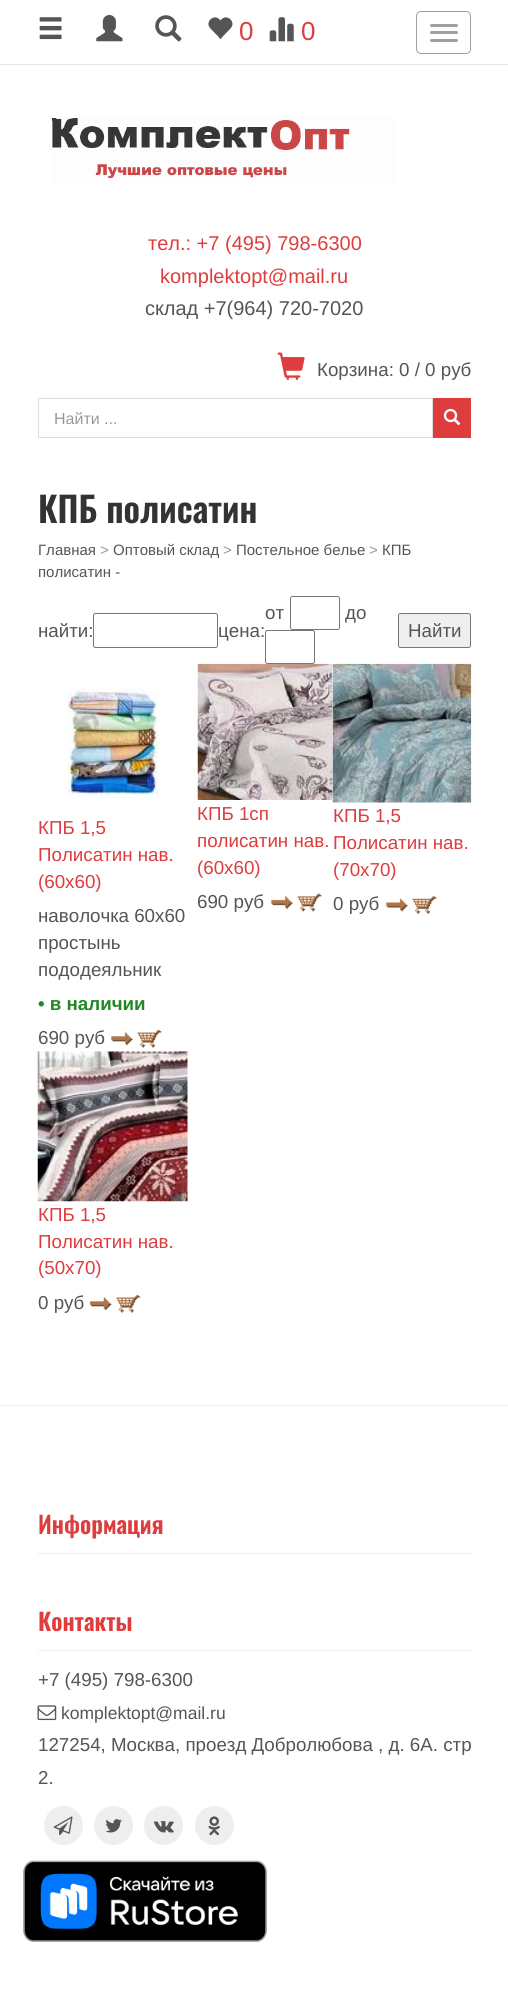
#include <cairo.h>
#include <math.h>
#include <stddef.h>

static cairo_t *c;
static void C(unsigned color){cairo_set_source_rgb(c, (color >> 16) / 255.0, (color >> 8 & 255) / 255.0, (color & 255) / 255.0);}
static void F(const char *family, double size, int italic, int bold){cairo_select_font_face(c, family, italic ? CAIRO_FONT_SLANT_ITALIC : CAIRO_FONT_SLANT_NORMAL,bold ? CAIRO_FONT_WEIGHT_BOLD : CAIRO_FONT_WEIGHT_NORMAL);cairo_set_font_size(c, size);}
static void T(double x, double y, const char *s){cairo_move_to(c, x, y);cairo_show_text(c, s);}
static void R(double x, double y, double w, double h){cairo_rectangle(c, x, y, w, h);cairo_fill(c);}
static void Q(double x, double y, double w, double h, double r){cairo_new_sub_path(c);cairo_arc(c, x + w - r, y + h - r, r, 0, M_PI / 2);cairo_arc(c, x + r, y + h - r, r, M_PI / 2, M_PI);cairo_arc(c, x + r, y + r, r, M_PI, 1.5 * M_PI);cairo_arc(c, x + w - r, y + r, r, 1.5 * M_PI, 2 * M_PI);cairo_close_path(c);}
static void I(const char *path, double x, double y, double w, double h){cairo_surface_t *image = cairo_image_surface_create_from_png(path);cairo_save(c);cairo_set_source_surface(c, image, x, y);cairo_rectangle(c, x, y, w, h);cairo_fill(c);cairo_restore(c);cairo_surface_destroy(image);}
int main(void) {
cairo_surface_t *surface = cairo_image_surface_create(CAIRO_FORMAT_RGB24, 508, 1994);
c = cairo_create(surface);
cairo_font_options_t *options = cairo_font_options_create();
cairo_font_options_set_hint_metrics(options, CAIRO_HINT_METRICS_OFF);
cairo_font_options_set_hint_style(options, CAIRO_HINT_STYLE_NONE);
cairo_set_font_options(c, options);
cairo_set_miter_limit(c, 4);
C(0xffffff);
cairo_paint(c);
C(0xe6e6e6);
R(0,64,508,1);
I("1.png",39,17,23,23);
I("2.png",96,15,27,27);
I("3.png",155,15,27,27);
I("4.png",208,17,25,23);
F("Liberation Sans",26,0,0);
C(0xdf3c3d);
T(239,40,"0");
I("5.png",269,17,25,25);
T(301,40,"0");
Q(416.5,11.5,54,42,4.5);
C(0xa0a0a0);
cairo_set_line_width(c,1);
cairo_stroke(c);
Q(430,24,28,3,1.5);
cairo_fill(c);
Q(430,31,28,3,1.5);
cairo_fill(c);
Q(430,39,28,3,1.5);
cairo_fill(c);
I("6.png",51,117,343,68);
F("Liberation Sans",20,0,0);
C(0xdf3c3d);
T(148,250,"тел.: +7 (495) 798-6300");
T(160,283,"komplektopt@mail.ru");
C(0x555555);
T(145,315,"склад +7(964) 720-7020");
I("7.png",277,352,28,28);
F("Liberation Sans",18.75,0,0);
T(317,376,"Корзина: 0 / 0 руб");
cairo_rectangle(c,38.5,398.5,394,39);
C(0xdddddd);
cairo_stroke(c);
F("Liberation Sans",16,0,0);
C(0x999999);
T(54,424,"Найти ...");
C(0xdf3c3d);
R(433,398,38,40);
I("8.png",443,408,18,18);
F("Oswald SemiBold",35,0,0);
C(0x333333);
T(38,523,"КПБ полисатин");
F("Liberation Sans",15,0,0);
C(0x555555);
T(38,555,"Главная");
C(0x999999);
T(100,555,">");
C(0x555555);
T(113,555,"Оптовый склад");
C(0x999999);
T(223,555,">");
C(0x555555);
T(236,555,"Постельное белье");
C(0x999999);
T(369,555,">");
C(0x555555);
T(382,555,"КПБ");
T(38,577,"полисатин -");
F("Liberation Sans",18.75,0,0);
T(38,637,"найти:");
Q(93.5,613.5,124,34,2);
C(0x767676);
cairo_stroke(c);
C(0x555555);
T(218,637,"цена:");
T(265,619,"от");
Q(290.5,596.5,49,33,2);
C(0x767676);
cairo_stroke(c);
C(0x555555);
T(345,619,"до");
Q(265.5,630.5,49,33,2);
C(0x767676);
cairo_stroke(c);
C(0xefefef);
Q(398.5,613.5,72,34,2);
cairo_fill_preserve(c);
C(0x767676);
cairo_stroke(c);
C(0x555555);
T(408,637,"Найти");
I("9.png",62,688,97,111);
C(0xdf3c3d);
T(38,834,"КПБ 1,5");
T(38,861,"Полисатин нав.");
T(38,888,"(60х60)");
C(0x555555);
T(38,922,"наволочка 60х60");
T(38,949,"простынь");
T(38,976,"пододеяльник");
F("Liberation Sans",18.75,0,1);
C(0x228822);
T(38,1010,"• в наличии");
F("Liberation Sans",18.75,0,0);
C(0x555555);
T(38,1044,"690 руб");
I("10.png",111,1029,51,19);
I("11.png",197,663,136,137);
C(0xdf3c3d);
T(197,820,"КПБ 1сп");
T(197,847,"полисатин нав.");
T(197,874,"(60х60)");
C(0x555555);
T(197,908,"690 руб");
I("12.png",271,893,51,19);
I("13.png",332,663,140,140);
C(0xdf3c3d);
T(333,822,"КПБ 1,5");
T(333,849,"Полисатин нав.");
T(333,876,"(70х70)");
C(0x555555);
T(333,910,"0 руб");
I("14.png",386,896,51,18);
I("15.png",37,1051,151,151);
C(0xdf3c3d);
T(38,1221,"КПБ 1,5");
T(38,1248,"Полисатин нав.");
T(38,1274,"(50х70)");
C(0x555555);
T(38,1309,"0 руб");
I("16.png",89,1294,52,19);
C(0xeeeeee);
R(0,1405,508,1);
R(38,1553,433,1);
F("Oswald SemiBold",23.75,0,0);
C(0xdf3c3d);
T(38,1534,"Информация");
C(0xeeeeee);
R(38,1650,433,1);
C(0xdf3c3d);
T(38,1631,"Контакты");
F("Liberation Sans",18.75,0,0);
C(0x555555);
T(38,1686,"+7 (495) 798-6300");
I("17.png",37,1705,20,16);
F("Liberation Sans",17.5,0,0);
T(61,1719,"komplektopt@mail.ru");
F("Liberation Sans",18.75,0,0);
T(38,1751,"127254, Москва, проезд Добролюбова , д. 6А. стр");
T(38,1784,"2.");
C(0xeeeeee);
cairo_new_path(c);
cairo_arc(c,63.5,1825.5,19.5,0,2 * M_PI);
cairo_fill(c);
I("18.png",53,1816,20,20);
cairo_arc(c,113.5,1825.5,19.5,0,2 * M_PI);
cairo_fill(c);
I("19.png",105,1819,17,14);
cairo_arc(c,163.5,1825.5,19.5,0,2 * M_PI);
cairo_fill(c);
I("20.png",153,1821,21,12);
cairo_arc(c,214.5,1825.5,19.5,0,2 * M_PI);
cairo_fill(c);
I("21.png",208,1816,12,20);
I("22.png",23,1860,244,82);
cairo_surface_write_to_png(surface, "o.png");
cairo_font_options_destroy(options);
cairo_destroy(c);
cairo_surface_destroy(surface);
return 0;
}
